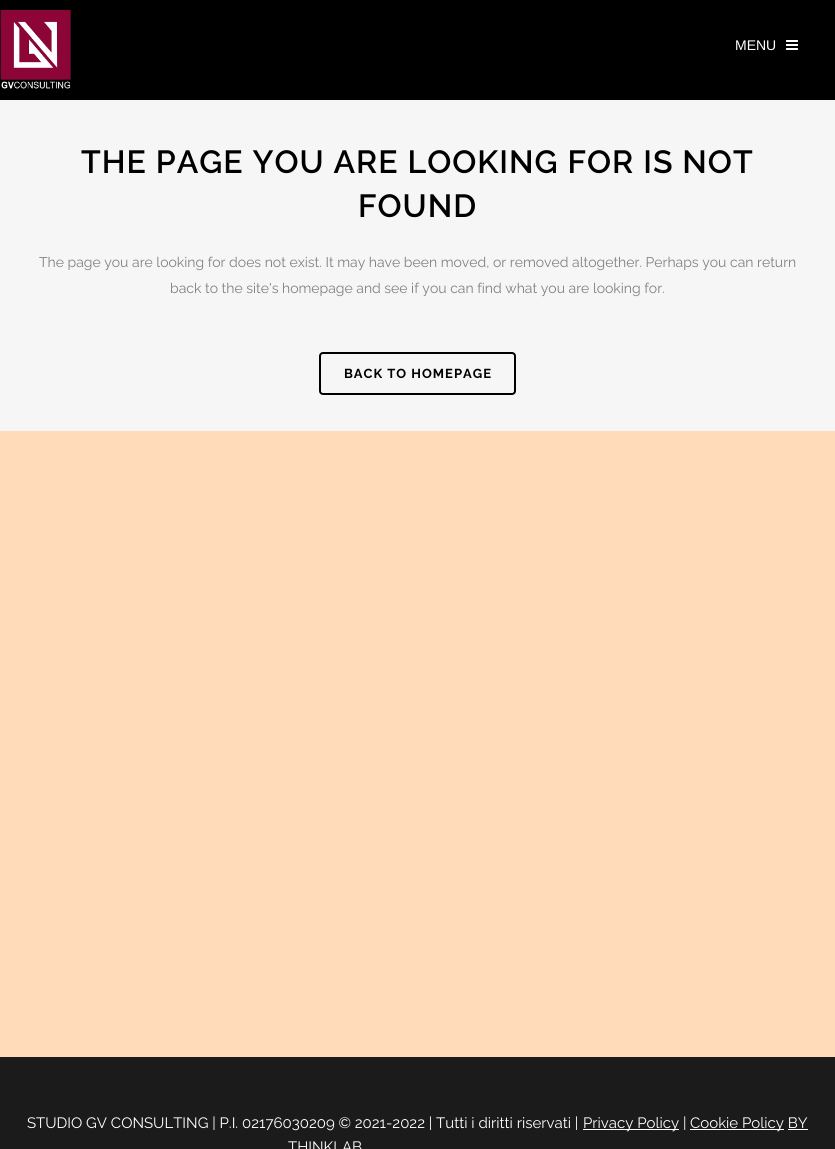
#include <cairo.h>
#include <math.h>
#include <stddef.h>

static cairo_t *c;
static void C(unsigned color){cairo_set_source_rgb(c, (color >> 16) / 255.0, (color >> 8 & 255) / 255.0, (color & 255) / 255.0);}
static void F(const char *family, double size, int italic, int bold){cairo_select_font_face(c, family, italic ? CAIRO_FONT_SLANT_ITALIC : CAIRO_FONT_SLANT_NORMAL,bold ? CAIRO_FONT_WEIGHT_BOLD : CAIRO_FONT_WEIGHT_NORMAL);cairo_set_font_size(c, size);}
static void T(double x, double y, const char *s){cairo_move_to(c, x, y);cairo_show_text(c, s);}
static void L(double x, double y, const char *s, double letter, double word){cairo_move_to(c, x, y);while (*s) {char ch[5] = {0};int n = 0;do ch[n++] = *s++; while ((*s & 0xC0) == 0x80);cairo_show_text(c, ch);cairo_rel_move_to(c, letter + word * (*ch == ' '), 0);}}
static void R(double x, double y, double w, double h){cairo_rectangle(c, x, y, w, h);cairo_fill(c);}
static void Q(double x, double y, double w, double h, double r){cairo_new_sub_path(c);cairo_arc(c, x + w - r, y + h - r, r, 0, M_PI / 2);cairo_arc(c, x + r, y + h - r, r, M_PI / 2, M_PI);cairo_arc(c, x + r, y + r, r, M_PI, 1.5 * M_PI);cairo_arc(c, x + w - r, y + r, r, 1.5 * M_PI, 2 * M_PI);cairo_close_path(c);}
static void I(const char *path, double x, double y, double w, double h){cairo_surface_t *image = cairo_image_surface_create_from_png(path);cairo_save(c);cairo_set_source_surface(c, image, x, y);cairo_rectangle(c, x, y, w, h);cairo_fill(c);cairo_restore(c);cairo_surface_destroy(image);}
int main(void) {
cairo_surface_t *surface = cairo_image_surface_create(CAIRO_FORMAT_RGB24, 835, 1149);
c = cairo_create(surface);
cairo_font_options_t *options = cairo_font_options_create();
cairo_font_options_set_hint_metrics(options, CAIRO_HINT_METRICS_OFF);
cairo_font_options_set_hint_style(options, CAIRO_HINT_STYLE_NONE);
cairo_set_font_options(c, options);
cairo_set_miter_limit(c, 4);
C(0xf6f6f6);
cairo_paint(c);
C(0x000000);
R(0,0,835,100);
I("1.png",0,10,71,79);
F("Liberation Sans",14,0,0);
C(0xffffff);
T(735,50,"MENU");
I("2.png",786,40,12,10);
C(0xffdbba);
R(0,431,835,626);
F("Raleway SemiBold",32,0,0);
C(0x000000);
L(81,173,"THE PAGE YOU ARE LOOKING FOR IS NOT",1,0);
L(358,217,"FOUND",1,0);
F("Raleway",14,0,0);
C(0x818181);
T(39,267,"The page you are looking for does not exist. It may have been moved, or removed altogether. Perhaps you can return");
T(170,293,"back to the site's homepage and see if you can find what you are looking for.");
Q(320,353,195,41,3);
C(0x000000);
cairo_stroke(c);
F("Raleway",13,0,1);
L(344,378,"BACK TO HOMEPAGE",1,0);
C(0x1b1b1b);
R(0,1057,835,92);
F("Raleway",15,0,0);
C(0xffffff);
T(27,1128,"STUDIO GV CONSULTING | P.I. 02176030209 © 2021-2022 | Tutti i diritti riservati |");
R(583,1129,96,1);
T(583,1128,"Privacy Policy |");
R(690,1129,94,1);
T(690,1128,"Cookie Policy BY");
R(788,1129,20,1);
T(288,1152,"THINKLAB");
cairo_surface_write_to_png(surface, "o.png");
cairo_font_options_destroy(options);
cairo_destroy(c);
cairo_surface_destroy(surface);
return 0;
}
